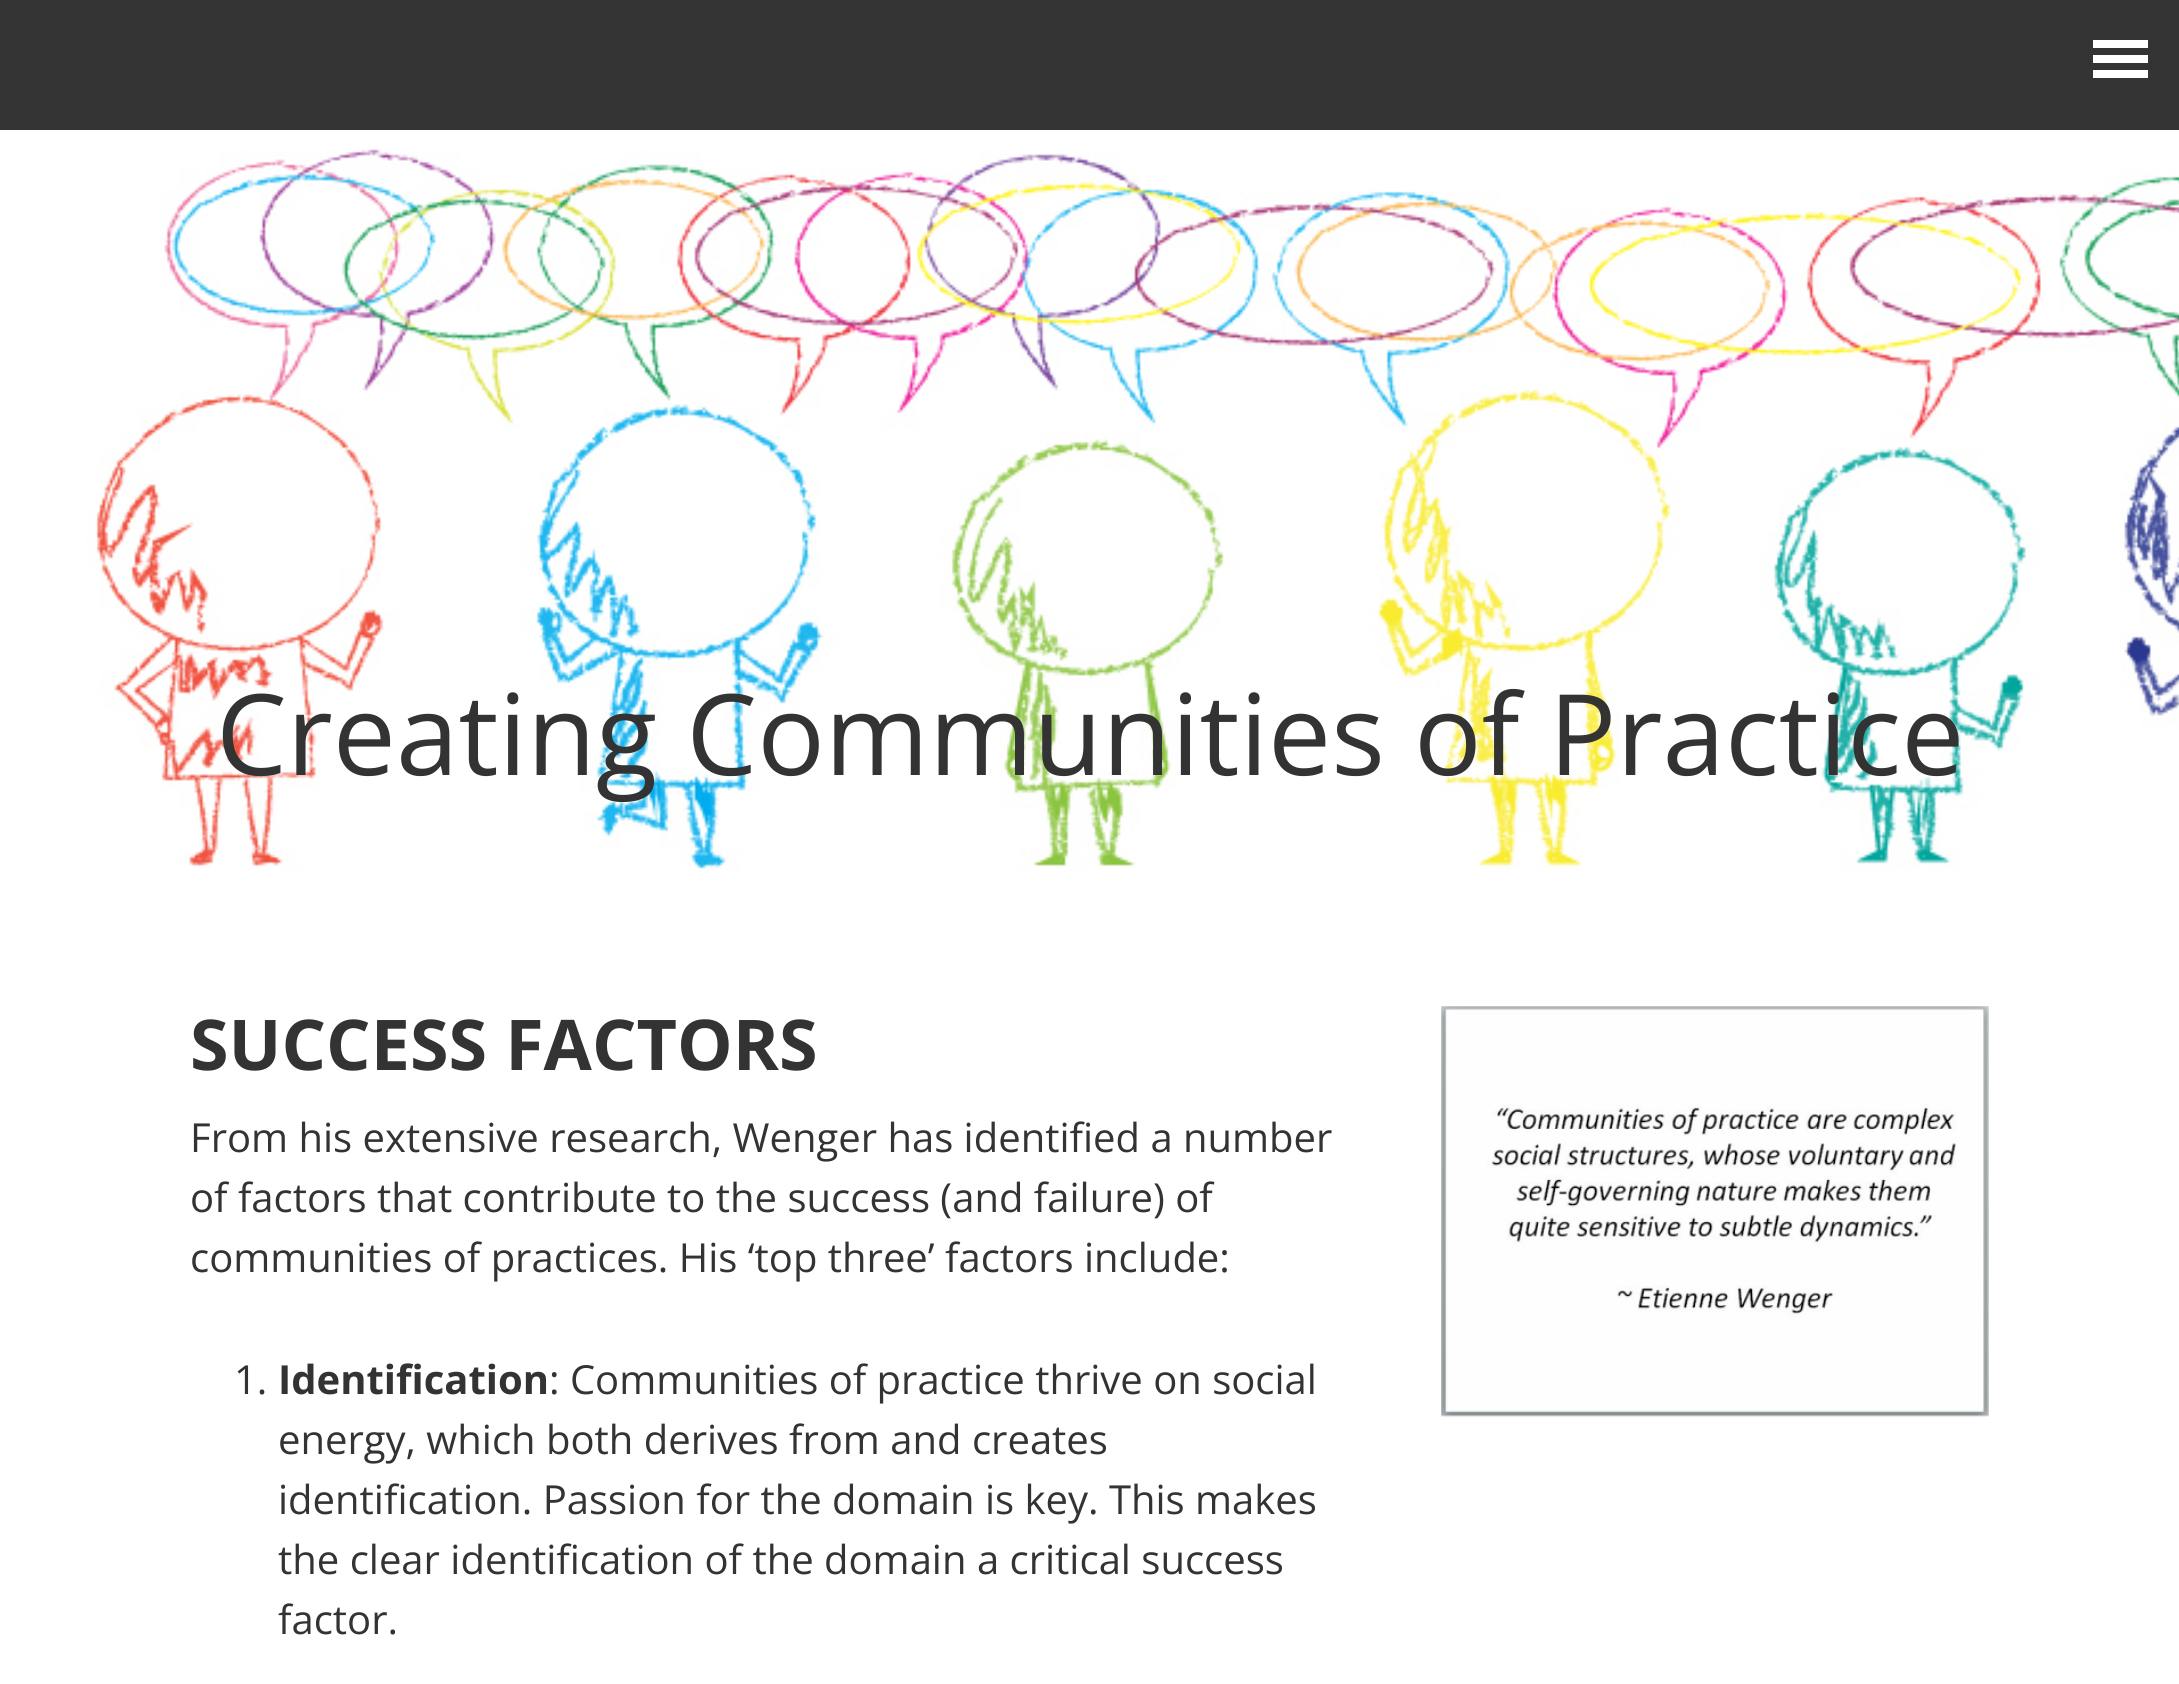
#include <cairo.h>
#include <math.h>
#include <stddef.h>

static cairo_t *c;
static void C(unsigned color){cairo_set_source_rgb(c, (color >> 16) / 255.0, (color >> 8 & 255) / 255.0, (color & 255) / 255.0);}
static void F(const char *family, double size, int italic, int bold){cairo_select_font_face(c, family, italic ? CAIRO_FONT_SLANT_ITALIC : CAIRO_FONT_SLANT_NORMAL,bold ? CAIRO_FONT_WEIGHT_BOLD : CAIRO_FONT_WEIGHT_NORMAL);cairo_set_font_size(c, size);}
static void T(double x, double y, const char *s){cairo_move_to(c, x, y);cairo_show_text(c, s);}
static void R(double x, double y, double w, double h){cairo_rectangle(c, x, y, w, h);cairo_fill(c);}
static void I(const char *path, double x, double y, double w, double h){cairo_surface_t *image = cairo_image_surface_create_from_png(path);cairo_save(c);cairo_set_source_surface(c, image, x, y);cairo_rectangle(c, x, y, w, h);cairo_fill(c);cairo_restore(c);cairo_surface_destroy(image);}
int main(void) {
cairo_surface_t *surface = cairo_image_surface_create(CAIRO_FORMAT_RGB24, 2179, 1684);
c = cairo_create(surface);
cairo_font_options_t *options = cairo_font_options_create();
cairo_font_options_set_hint_metrics(options, CAIRO_HINT_METRICS_OFF);
cairo_font_options_set_hint_style(options, CAIRO_HINT_STYLE_NONE);
cairo_set_font_options(c, options);
cairo_set_miter_limit(c, 4);
C(0xffffff);
cairo_paint(c);
C(0x333333);
R(0,0,2179,130);
C(0xffffff);
R(2093,40,55,8);
R(2093,55,55,8);
R(2093,70,55,8);
I("1.png",86,149,2093,722);
F("Open Sans",112.5,0,0);
C(0x333333);
T(216,775,"Creating Communities of Practice");
F("Open Sans",70,0,1);
T(190,1070,"SUCCESS FACTORS");
F("Open Sans",40,0,0);
T(190,1152,"From his extensive research, Wenger has identified a number");
T(190,1212,"of factors that contribute to the success (and failure) of");
T(190,1272,"communities of practices. His ‘top three’ factors include:");
T(234,1394,"1.");
F("Open Sans",40,0,1);
T(278,1394,"Identification");
F("Open Sans",40,0,0);
T(549,1394,": Communities of practice thrive on social");
T(278,1454,"energy, which both derives from and creates");
T(278,1514,"identification. Passion for the domain is key. This makes");
T(278,1574,"the clear identification of the domain a critical success");
T(278,1634,"factor.");
I("2.png",1441,1006,548,411);
cairo_surface_write_to_png(surface, "o.png");
cairo_font_options_destroy(options);
cairo_destroy(c);
cairo_surface_destroy(surface);
return 0;
}
